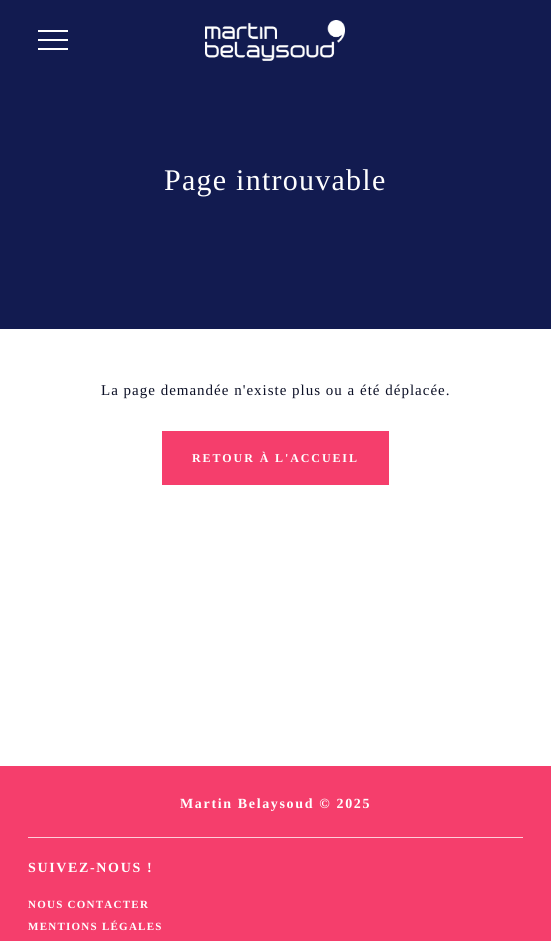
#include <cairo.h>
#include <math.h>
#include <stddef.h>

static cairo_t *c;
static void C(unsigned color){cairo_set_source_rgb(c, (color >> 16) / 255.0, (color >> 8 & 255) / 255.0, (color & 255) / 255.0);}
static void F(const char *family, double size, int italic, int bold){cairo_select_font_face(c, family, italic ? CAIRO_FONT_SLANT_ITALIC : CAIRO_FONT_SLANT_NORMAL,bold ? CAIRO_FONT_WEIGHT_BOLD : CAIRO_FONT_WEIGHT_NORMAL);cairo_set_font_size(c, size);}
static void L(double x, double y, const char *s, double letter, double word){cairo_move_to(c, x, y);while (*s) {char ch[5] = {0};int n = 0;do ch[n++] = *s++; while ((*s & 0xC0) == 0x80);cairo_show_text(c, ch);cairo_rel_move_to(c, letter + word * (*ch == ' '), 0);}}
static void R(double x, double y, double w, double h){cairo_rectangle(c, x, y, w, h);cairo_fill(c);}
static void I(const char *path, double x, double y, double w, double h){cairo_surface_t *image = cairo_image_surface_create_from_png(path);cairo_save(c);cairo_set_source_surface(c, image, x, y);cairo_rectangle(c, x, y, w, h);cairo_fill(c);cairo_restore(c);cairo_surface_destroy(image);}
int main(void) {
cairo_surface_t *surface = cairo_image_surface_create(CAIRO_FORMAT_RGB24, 551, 941);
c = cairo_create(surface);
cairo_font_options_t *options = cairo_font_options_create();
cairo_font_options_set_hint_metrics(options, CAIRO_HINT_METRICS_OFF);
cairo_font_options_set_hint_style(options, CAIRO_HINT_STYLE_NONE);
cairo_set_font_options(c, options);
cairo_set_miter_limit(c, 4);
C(0xffffff);
cairo_paint(c);
C(0x121b50);
R(0,0,551,329);
C(0xffffff);
R(38,30,30,2);
R(38,39,30,2);
R(38,48,30,2);
I("1.png",205,20,140,41);
F("Liberation Serif",30,0,0);
L(164,190,"Page introuvable",1.25,0);
F("Liberation Serif",15,0,0);
C(0x0c1026);
L(101,395,"La page demandée n'existe plus ou a été déplacée.",1,0);
C(0xf53e6c);
R(162,431,227,54);
F("Liberation Serif",12,0,1);
C(0xffffff);
L(192,462,"RETOUR À L'ACCUEIL",1.9,0);
C(0xf53e6c);
R(0,766,551,175);
C(0xfdcfda);
R(28,837,495,1);
F("Liberation Serif",14,0,1);
C(0xffffff);
L(180,808,"Martin Belaysoud © 2025",1.65,0);
F("Liberation Serif",11,0,1);
L(28,908,"NOUS CONTACTER",1.25,0);
L(28,930,"MENTIONS LÉGALES",1.25,0);
F("Liberation Serif",14,0,1);
L(28,872,"SUIVEZ-NOUS !",1.65,0);
cairo_surface_write_to_png(surface, "o.png");
cairo_font_options_destroy(options);
cairo_destroy(c);
cairo_surface_destroy(surface);
return 0;
}
